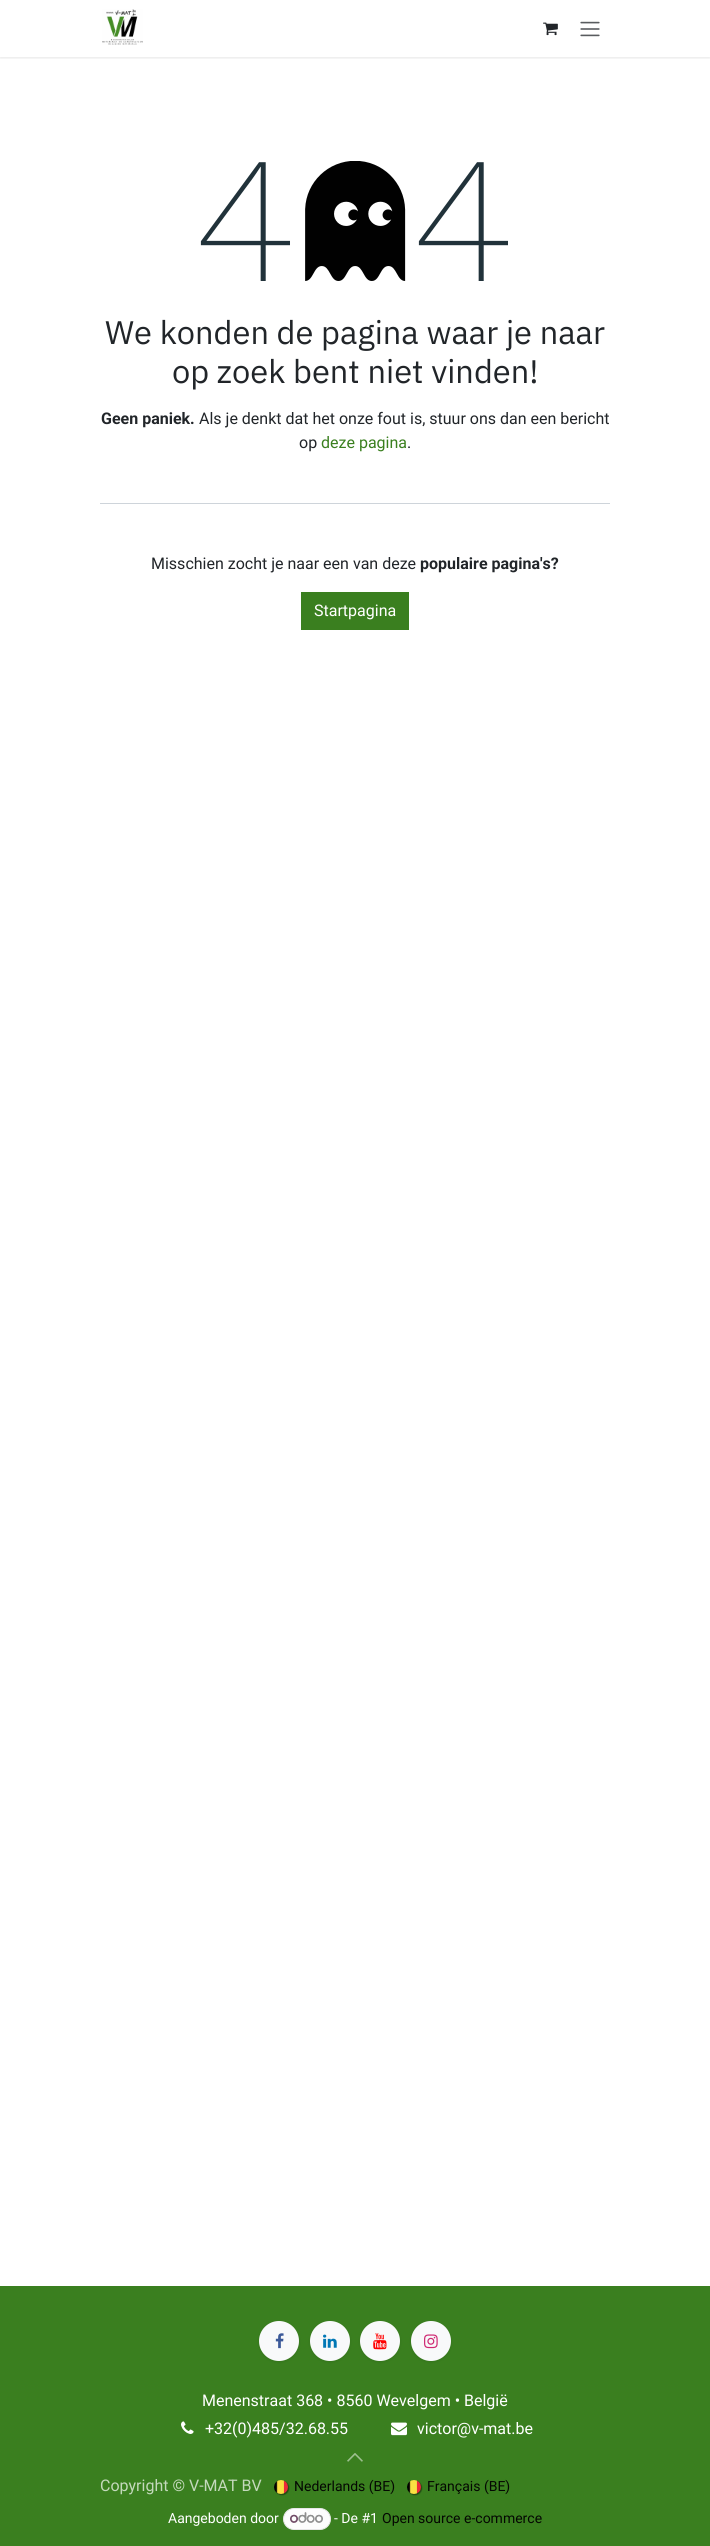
#include <cairo.h>
#include <math.h>
#include <stddef.h>

static cairo_t *c;
static void C(unsigned color){cairo_set_source_rgb(c, (color >> 16) / 255.0, (color >> 8 & 255) / 255.0, (color & 255) / 255.0);}
static void F(const char *family, double size, int italic, int bold){cairo_select_font_face(c, family, italic ? CAIRO_FONT_SLANT_ITALIC : CAIRO_FONT_SLANT_NORMAL,bold ? CAIRO_FONT_WEIGHT_BOLD : CAIRO_FONT_WEIGHT_NORMAL);cairo_set_font_size(c, size);}
static void T(double x, double y, const char *s){cairo_move_to(c, x, y);cairo_show_text(c, s);}
static void R(double x, double y, double w, double h){cairo_rectangle(c, x, y, w, h);cairo_fill(c);}
static void Q(double x, double y, double w, double h, double r){cairo_new_sub_path(c);cairo_arc(c, x + w - r, y + h - r, r, 0, M_PI / 2);cairo_arc(c, x + r, y + h - r, r, M_PI / 2, M_PI);cairo_arc(c, x + r, y + r, r, M_PI, 1.5 * M_PI);cairo_arc(c, x + w - r, y + r, r, 1.5 * M_PI, 2 * M_PI);cairo_close_path(c);}
static void S(double x, double y, double w, double h, double r, double blur, double alpha){cairo_push_group_with_content(c, CAIRO_CONTENT_ALPHA);cairo_set_operator(c, CAIRO_OPERATOR_SOURCE);for (int i = 15; i >= -15 && fmin(w, h) + blur * i / 3 > 0; i -= 2) {double e = blur * i / 6;cairo_set_source_rgba(c, 0, 0, 0, alpha * erfc((i - 1) / 8.5) / 2);Q(x - e, y - e, w + 2 * e, h + 2 * e, fmax(0, fmin(r + e + blur * .6, fmin(w, h) / 2 + e)));cairo_fill(c);}cairo_pattern_t *soft = cairo_pop_group(c);cairo_mask(c, soft);cairo_pattern_destroy(soft);}
static void I(const char *path, double x, double y, double w, double h){cairo_surface_t *image = cairo_image_surface_create_from_png(path);cairo_save(c);cairo_set_source_surface(c, image, x, y);cairo_rectangle(c, x, y, w, h);cairo_fill(c);cairo_restore(c);cairo_surface_destroy(image);}
int main(void) {
cairo_surface_t *surface = cairo_image_surface_create(CAIRO_FORMAT_RGB24, 710, 2546);
c = cairo_create(surface);
cairo_font_options_t *options = cairo_font_options_create();
cairo_font_options_set_hint_metrics(options, CAIRO_HINT_METRICS_OFF);
cairo_font_options_set_hint_style(options, CAIRO_HINT_STYLE_NONE);
cairo_set_font_options(c, options);
cairo_set_miter_limit(c, 4);
C(0xffffff);
cairo_paint(c);
cairo_save(c);
cairo_rectangle(c,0,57,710,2);
cairo_clip(c);
C(0x000000);
S(0,1,710,57,0,1.5,.1);
cairo_restore(c);
I("1.png",102,9,41,36);
I("2.png",543,22,15,14);
I("3.png",580,21,20,16);
I("4.png",200,161,308,120);
F("IBM Plex Sans",32.6,0,0);
C(0x212529);
T(105,344,"We konden de pagina waar je naar");
T(172,383,"op zoek bent niet vinden!");
F("Roboto",16,0,1);
T(101,424,"Geen paniek.");
F("Roboto",16,0,0);
T(199,424,"Als je denkt dat het onze fout is, stuur ons dan een bericht");
T(299,448,"op");
C(0x3a7f1f);
T(321,448,"deze pagina");
C(0x212529);
T(407,448,".");
C(0xced4da);
R(100,503,510,1);
C(0x212529);
T(151,569,"Misschien zocht je naar een van deze");
F("Roboto",16,0,1);
T(420,569,"populaire pagina's?");
C(0x3a7f1f);
R(301,592,108,38);
F("Roboto",16,0,0);
C(0xffffff);
T(314,616,"Startpagina");
C(0x3a7f1f);
R(0,2286,710,260);
C(0x000000);
S(259,2322,40,40,20,1.5,.1);
C(0xf8f9fa);
cairo_arc(c,279,2341,20,0,2 * M_PI);
cairo_fill(c);
I("5.png",275,2333,9,16);
C(0x000000);
S(310,2322,40,40,20,1.5,.1);
C(0xf8f9fa);
cairo_arc(c,330,2341,20,0,2 * M_PI);
cairo_fill(c);
I("6.png",323,2334,14,14);
C(0x000000);
S(360,2322,40,40,20,1.5,.1);
C(0xf8f9fa);
cairo_arc(c,380,2341,20,0,2 * M_PI);
cairo_fill(c);
I("7.png",373,2333,14,17);
C(0x000000);
S(411,2322,40,40,20,1.5,.1);
C(0xf8f9fa);
cairo_arc(c,431,2341,20,0,2 * M_PI);
cairo_fill(c);
I("8.png",424,2334,14,15);
C(0xffffff);
T(202,2406,"Menenstraat 368 • 8560 Wevelgem • België");
I("9.png",181,2421,13,13);
T(205,2434,"+32(0)485/32.68.55");
I("10.png",391,2422,16,14);
T(417,2434,"victor@v-mat.be");
F("Roboto",14,0,0);
C(0x040802);
T(294,2491,"Nederlands (BE)");
C(0x3a7f1f);
cairo_new_path(c);
cairo_arc(c,355,2457,24,0,2 * M_PI);
cairo_fill(c);
I("11.png",347,2453,16,9);
F("Roboto",16,0,0);
C(0xc4d9bc);
T(100,2491,"Copyright © V-MAT BV");
C(0x000000);
S(275,2481,14,14,7,.5,.43);
I("12.png",274,2480,14,14);
S(408,2481,14,14,7,.5,.43);
F("Roboto",14,0,0);
C(0x040802);
T(427,2491,"Français (BE)");
I("12.png",407,2480,14,14);
C(0xffffff);
T(168,2523,"Aangeboden door");
C(0xfdfdfd);
Q(283.5,2508.5,47,21,10.5);
cairo_fill_preserve(c);
C(0xe6e6e6);
cairo_set_line_width(c,1);
cairo_stroke(c);
I("13.png",290,2512,33,11);
C(0xffffff);
T(334,2523,"- De #1");
C(0x040802);
T(382,2523,"Open source e-commerce");
cairo_surface_write_to_png(surface, "o.png");
cairo_font_options_destroy(options);
cairo_destroy(c);
cairo_surface_destroy(surface);
return 0;
}
